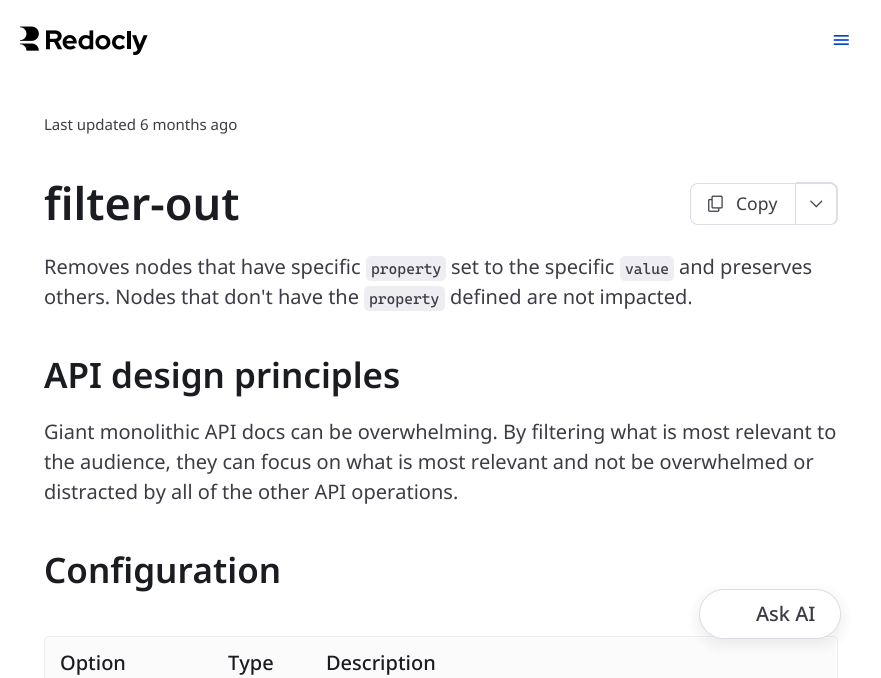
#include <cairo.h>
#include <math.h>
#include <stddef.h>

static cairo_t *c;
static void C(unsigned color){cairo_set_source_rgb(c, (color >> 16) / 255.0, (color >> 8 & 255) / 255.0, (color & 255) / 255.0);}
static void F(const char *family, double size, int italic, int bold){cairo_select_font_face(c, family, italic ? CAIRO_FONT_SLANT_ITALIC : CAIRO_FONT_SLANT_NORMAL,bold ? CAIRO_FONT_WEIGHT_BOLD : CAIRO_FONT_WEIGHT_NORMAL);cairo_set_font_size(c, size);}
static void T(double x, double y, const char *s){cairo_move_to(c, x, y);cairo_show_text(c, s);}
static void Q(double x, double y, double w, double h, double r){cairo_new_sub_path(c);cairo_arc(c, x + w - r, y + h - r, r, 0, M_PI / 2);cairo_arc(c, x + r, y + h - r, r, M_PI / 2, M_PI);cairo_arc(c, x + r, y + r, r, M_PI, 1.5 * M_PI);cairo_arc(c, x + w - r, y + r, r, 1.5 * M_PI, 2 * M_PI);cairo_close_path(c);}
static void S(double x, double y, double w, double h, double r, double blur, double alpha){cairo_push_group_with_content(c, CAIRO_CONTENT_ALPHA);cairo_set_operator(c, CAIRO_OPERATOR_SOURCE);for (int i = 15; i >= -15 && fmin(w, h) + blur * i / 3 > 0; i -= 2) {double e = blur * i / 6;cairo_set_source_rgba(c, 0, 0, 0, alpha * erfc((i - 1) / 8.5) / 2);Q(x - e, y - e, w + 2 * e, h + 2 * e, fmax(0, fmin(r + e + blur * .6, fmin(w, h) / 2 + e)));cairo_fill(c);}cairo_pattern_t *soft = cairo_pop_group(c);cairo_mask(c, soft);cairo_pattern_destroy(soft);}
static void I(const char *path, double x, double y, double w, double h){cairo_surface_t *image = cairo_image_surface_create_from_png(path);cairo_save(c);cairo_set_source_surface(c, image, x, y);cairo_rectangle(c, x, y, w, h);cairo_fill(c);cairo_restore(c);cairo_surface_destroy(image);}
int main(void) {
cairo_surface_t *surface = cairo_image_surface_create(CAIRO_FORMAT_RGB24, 881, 678);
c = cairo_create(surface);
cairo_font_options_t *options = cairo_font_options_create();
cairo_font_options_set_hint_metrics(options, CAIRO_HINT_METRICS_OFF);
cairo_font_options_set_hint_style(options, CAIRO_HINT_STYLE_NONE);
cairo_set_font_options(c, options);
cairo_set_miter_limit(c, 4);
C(0xffffff);
cairo_paint(c);
I("1.png",20,26,128,29);
I("2.png",833,35,16,10);
F("Noto Sans",15,0,0);
C(0x3b3c45);
T(44,130,"Last updated 6 months ago");
F("Noto Sans SemiBold",45,0,0);
C(0x1a1c21);
T(44,220,"filter-out");
cairo_new_path(c);
cairo_move_to(c,698,183.5);
cairo_line_to(c,795.5,183.5);
cairo_line_to(c,795.5,224.5);
cairo_line_to(c,698,224.5);
cairo_curve_to(c,694,224.5,690.5,221,690.5,217);
cairo_line_to(c,690.5,191);
cairo_curve_to(c,690.5,187,694,183.5,698,183.5);
cairo_close_path(c);
C(0xdcdde5);
cairo_set_line_width(c,1);
cairo_stroke(c);
I("3.png",708,195,15,17);
F("Noto Sans",17.5,0,0);
C(0x3b3c45);
T(736,210,"Copy");
C(0xdcdde5);
cairo_set_fill_rule(c,CAIRO_FILL_RULE_EVEN_ODD);
cairo_new_path(c);
cairo_move_to(c,796,182);
cairo_line_to(c,830,182);
cairo_curve_to(c,834,182,838,186,838,190);
cairo_line_to(c,838,218);
cairo_curve_to(c,838,222,834,225,830,225);
cairo_line_to(c,796,225);
cairo_close_path(c);
cairo_move_to(c,796,184);
cairo_line_to(c,830,184);
cairo_curve_to(c,833,184,836,187,836,190);
cairo_line_to(c,836,218);
cairo_curve_to(c,836,221,833,224,830,224);
cairo_line_to(c,796,224);
cairo_close_path(c);
cairo_fill(c);
I("4.png",810,200,13,8);
F("Noto Sans",20,0,0);
C(0x3b3c45);
T(44,274,"Removes nodes that have specific");
C(0xededf2);
Q(366,256,80,25,5);
cairo_fill(c);
F("Cascadia Mono",15,0,0);
C(0x3b3c45);
T(371,274,"property");
F("Noto Sans",20,0,0);
T(451,274,"set to the specific");
C(0xededf2);
Q(620,256,54,25,5);
cairo_fill(c);
F("Cascadia Mono",15,0,0);
C(0x3b3c45);
T(625,274,"value");
F("Noto Sans",20,0,0);
T(679,274,"and preserves");
T(44,304,"others. Nodes that don't have the");
C(0xededf2);
Q(364,286,81,25,5);
cairo_fill(c);
F("Cascadia Mono",15,0,0);
C(0x3b3c45);
T(369,304,"property");
F("Noto Sans",20,0,0);
T(450,304,"defined are not impacted.");
F("Noto Sans SemiBold",35,0,0);
C(0x1a1c21);
T(44,388,"API design principles");
F("Noto Sans",20,0,0);
C(0x3b3c45);
T(44,439,"Giant monolithic API docs can be overwhelming. By filtering what is most relevant to");
T(44,469,"the audience, they can focus on what is most relevant and not be overwhelmed or");
T(44,499,"distracted by all of the other API operations.");
F("Noto Sans SemiBold",35,0,0);
C(0x1a1c21);
T(44,583,"Configuration");
Q(44.5,636.5,793,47,4.5);
C(0xededf2);
cairo_stroke(c);
C(0xfbfbfc);
cairo_new_path(c);
cairo_move_to(c,49,638);
cairo_line_to(c,832,638);
cairo_curve_to(c,834,638,836,640,836,642);
cairo_line_to(c,836,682);
cairo_line_to(c,45,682);
cairo_line_to(c,45,642);
cairo_curve_to(c,45,640,47,638,49,638);
cairo_close_path(c);
cairo_fill(c);
F("Noto Sans Medium",20,0,0);
C(0x1a1c21);
T(60,670,"Option");
T(228,670,"Type");
T(326,670,"Description");
C(0x000000);
S(699,594,142,50,25,7.5,.08);
C(0xffffff);
Q(699.5,589.5,141,49,24.5);
cairo_fill_preserve(c);
C(0xdcdde5);
cairo_stroke(c);
C(0x3b3c45);
T(756,621,"Ask AI");
cairo_surface_write_to_png(surface, "o.png");
cairo_font_options_destroy(options);
cairo_destroy(c);
cairo_surface_destroy(surface);
return 0;
}
